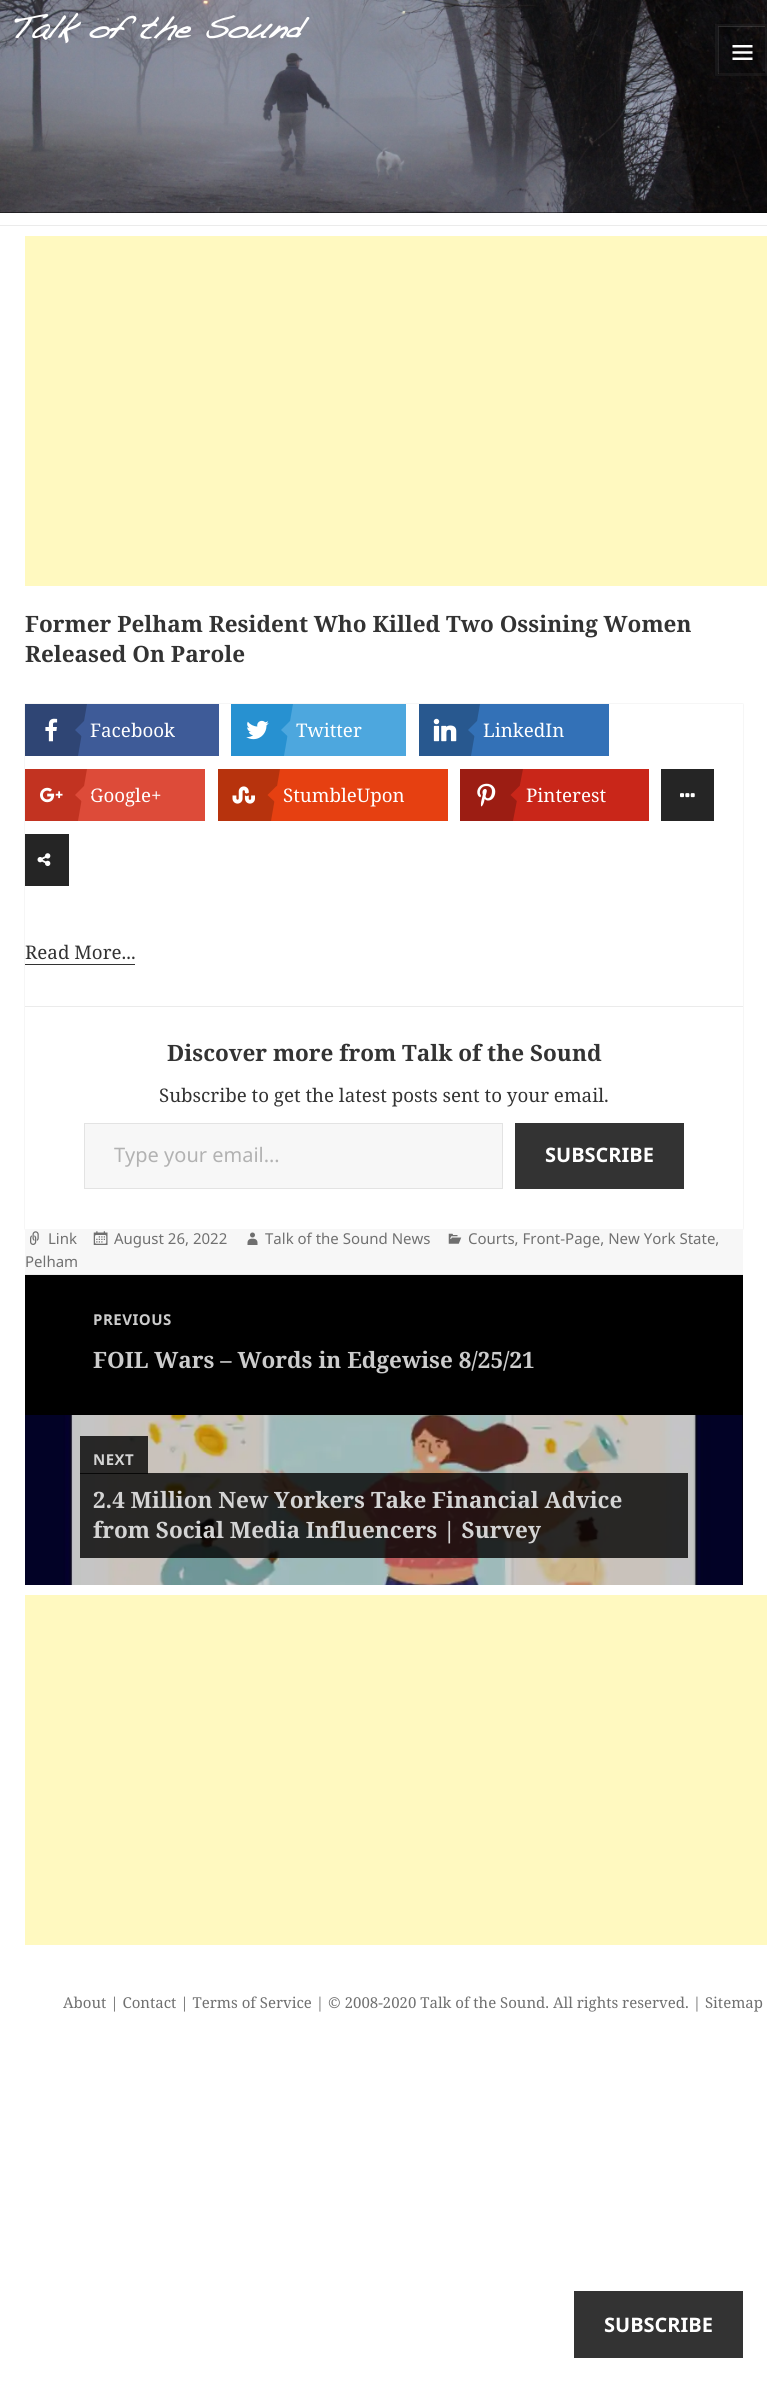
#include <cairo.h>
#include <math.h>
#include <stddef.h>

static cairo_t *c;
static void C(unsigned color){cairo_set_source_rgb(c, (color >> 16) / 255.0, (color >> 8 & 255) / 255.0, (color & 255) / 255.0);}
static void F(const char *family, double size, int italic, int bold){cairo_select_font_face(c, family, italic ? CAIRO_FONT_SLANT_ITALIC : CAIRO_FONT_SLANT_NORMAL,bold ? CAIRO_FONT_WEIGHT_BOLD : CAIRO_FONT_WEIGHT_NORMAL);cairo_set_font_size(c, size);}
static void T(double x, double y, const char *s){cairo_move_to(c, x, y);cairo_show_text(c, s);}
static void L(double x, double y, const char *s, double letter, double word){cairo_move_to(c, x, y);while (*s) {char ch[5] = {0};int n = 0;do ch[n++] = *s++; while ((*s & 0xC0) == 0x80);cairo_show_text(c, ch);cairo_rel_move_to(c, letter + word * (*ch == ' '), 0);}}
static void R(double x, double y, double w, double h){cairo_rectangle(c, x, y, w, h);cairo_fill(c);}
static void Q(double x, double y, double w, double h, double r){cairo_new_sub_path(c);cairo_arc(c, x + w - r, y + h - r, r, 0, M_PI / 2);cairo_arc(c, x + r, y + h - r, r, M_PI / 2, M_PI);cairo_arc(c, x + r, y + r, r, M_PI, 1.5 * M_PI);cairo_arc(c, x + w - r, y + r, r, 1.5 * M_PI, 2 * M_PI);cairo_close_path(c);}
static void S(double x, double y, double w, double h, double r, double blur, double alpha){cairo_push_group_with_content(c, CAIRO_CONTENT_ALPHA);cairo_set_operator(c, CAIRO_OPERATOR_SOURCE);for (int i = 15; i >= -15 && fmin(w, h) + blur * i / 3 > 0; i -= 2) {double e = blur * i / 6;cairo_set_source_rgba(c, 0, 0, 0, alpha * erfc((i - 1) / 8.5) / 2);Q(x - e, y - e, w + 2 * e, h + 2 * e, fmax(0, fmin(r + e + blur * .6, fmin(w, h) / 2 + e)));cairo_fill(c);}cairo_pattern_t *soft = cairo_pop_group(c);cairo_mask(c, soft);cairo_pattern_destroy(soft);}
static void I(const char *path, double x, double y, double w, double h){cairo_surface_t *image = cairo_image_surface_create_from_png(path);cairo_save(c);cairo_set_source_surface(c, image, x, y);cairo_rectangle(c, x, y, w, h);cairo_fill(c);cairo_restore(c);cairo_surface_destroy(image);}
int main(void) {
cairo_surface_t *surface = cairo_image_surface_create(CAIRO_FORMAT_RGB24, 767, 2382);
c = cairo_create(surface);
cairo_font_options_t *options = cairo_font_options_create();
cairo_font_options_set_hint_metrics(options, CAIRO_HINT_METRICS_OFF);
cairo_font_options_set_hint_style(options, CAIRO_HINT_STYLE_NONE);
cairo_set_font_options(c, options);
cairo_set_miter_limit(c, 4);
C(0xffffff);
cairo_paint(c);
C(0xebebeb);
R(0,225,767,1);
C(0x000000);
R(0,212,767,1);
I("1.png",0,0,767,213);
F("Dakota",27.5,1,1);
C(0xffffff);
T(8,38,"Talk of the Sound");
cairo_rectangle(c,716.5,25.5,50,49);
cairo_set_source_rgba(c,0.2,0.2,0.2,0.3);
cairo_set_line_width(c,3);
cairo_stroke(c);
cairo_save(c);
cairo_rectangle(c,718,26,47,48);
cairo_clip(c);
cairo_rectangle(c,718.5,26.5,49,52);
cairo_set_source_rgba(c,1,1,1,0.1);
cairo_set_line_width(c,1);
cairo_stroke(c);
cairo_restore(c);
I("2.png",732,45,21,15);
C(0xfff9c0);
R(25,236,742,350);
F("Noto Serif",22.5,0,1);
C(0x333333);
T(25,632,"Former Pelham Resident Who Killed Two Ossining Women");
T(25,662,"Released On Parole");
cairo_save(c);
cairo_set_fill_rule(c,CAIRO_FILL_RULE_EVEN_ODD);
cairo_new_path(c);
cairo_move_to(c,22,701);
cairo_line_to(c,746,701);
cairo_line_to(c,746,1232);
cairo_line_to(c,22,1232);
cairo_close_path(c);
cairo_move_to(c,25,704);
cairo_line_to(c,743,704);
cairo_line_to(c,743,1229);
cairo_line_to(c,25,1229);
cairo_close_path(c);
cairo_clip(c);
C(0x000000);
S(25,704,718,525,0,.5,.15);
cairo_restore(c);
C(0x3e5b98);
R(78,704,141,52);
C(0x2f4574);
R(25,704,50,52);
cairo_new_path(c);
cairo_move_to(c,75,704);
cairo_line_to(c,87,704);
cairo_line_to(c,78,756);
cairo_line_to(c,65,756);
cairo_close_path(c);
cairo_fill(c);
F("Noto Serif",18.75,0,0);
C(0xffffff);
T(90,737,"Facebook");
C(0x3e5b98);
cairo_new_path(c);
cairo_move_to(c,84,721);
cairo_line_to(c,92.5,730);
cairo_line_to(c,84,738.5);
cairo_line_to(c,75,730);
cairo_close_path(c);
cairo_fill(c);
I("3.png",45,718,13,24);
C(0x4da7de);
R(284,704,122,52);
C(0x2791d1);
R(231,704,50,52);
cairo_new_path(c);
cairo_move_to(c,281,704);
cairo_line_to(c,293,704);
cairo_line_to(c,284,756);
cairo_line_to(c,272,756);
cairo_close_path(c);
cairo_fill(c);
C(0xffffff);
T(296,737,"Twitter");
C(0x4da7de);
cairo_new_path(c);
cairo_move_to(c,290,721);
cairo_line_to(c,299,730);
cairo_line_to(c,290,738.5);
cairo_line_to(c,281,730);
cairo_close_path(c);
cairo_fill(c);
I("4.png",246,720,23,20);
C(0x3371b7);
R(471,704,138,52);
C(0x28588f);
R(419,704,49,52);
cairo_new_path(c);
cairo_move_to(c,468,704);
cairo_line_to(c,480,704);
cairo_line_to(c,471,756);
cairo_line_to(c,459,756);
cairo_close_path(c);
cairo_fill(c);
C(0xffffff);
T(483,737,"LinkedIn");
C(0x3371b7);
cairo_new_path(c);
cairo_move_to(c,477,721);
cairo_line_to(c,486,730);
cairo_line_to(c,477,738.5);
cairo_line_to(c,468,730);
cairo_close_path(c);
cairo_fill(c);
I("5.png",433,718,24,24);
C(0xdd4b39);
R(78,769,127,52);
C(0xc23321);
R(25,769,50,52);
cairo_new_path(c);
cairo_move_to(c,75,769);
cairo_line_to(c,87,769);
cairo_line_to(c,78,821);
cairo_line_to(c,65,821);
cairo_close_path(c);
cairo_fill(c);
C(0xffffff);
T(90,802,"Google+");
C(0xdd4b39);
cairo_new_path(c);
cairo_move_to(c,84,786);
cairo_line_to(c,92.5,795);
cairo_line_to(c,84,803.5);
cairo_line_to(c,75,795);
cairo_close_path(c);
cairo_fill(c);
I("6.png",40,787,23,16);
C(0xe64011);
R(271,769,177,52);
C(0xb7330d);
R(218,769,49,52);
cairo_new_path(c);
cairo_move_to(c,267,769);
cairo_line_to(c,280,769);
cairo_line_to(c,271,821);
cairo_line_to(c,258,821);
cairo_close_path(c);
cairo_fill(c);
C(0xffffff);
T(283,802,"StumbleUpon");
C(0xe64011);
cairo_new_path(c);
cairo_move_to(c,276.5,786);
cairo_line_to(c,285.5,795);
cairo_line_to(c,276.5,803.5);
cairo_line_to(c,267.5,795);
cairo_close_path(c);
cairo_fill(c);
I("7.png",232,786,23,18);
C(0xc92619);
R(513,769,136,52);
C(0x9c1d13);
R(460,769,50,52);
cairo_new_path(c);
cairo_move_to(c,510,769);
cairo_line_to(c,523,769);
cairo_line_to(c,513,821);
cairo_line_to(c,501,821);
cairo_close_path(c);
cairo_fill(c);
C(0xffffff);
T(526,802,"Pinterest");
C(0xc92619);
cairo_new_path(c);
cairo_move_to(c,519.5,786);
cairo_line_to(c,528,795);
cairo_line_to(c,519.5,803.5);
cairo_line_to(c,510.5,795);
cairo_close_path(c);
cairo_fill(c);
I("8.png",477,783,19,24);
C(0x252525);
R(661,769,53,52);
I("9.png",680,793,15,5);
R(25,834,44,52);
I("10.png",37,853,14,14);
C(0x333333);
T(25,959,"Read More...");
R(25,964,110,1);
cairo_set_source_rgba(c,0.2,0.2,0.2,0.1);
R(25,1006,718,1);
F("Noto Serif",22.5,0,1);
C(0x333333);
T(167,1061,"Discover more from Talk of the Sound");
F("Noto Serif",18.75,0,0);
T(159,1102,"Subscribe to get the latest posts sent to your email.");
C(0xf7f7f7);
cairo_rectangle(c,84.5,1123.5,418,65);
cairo_fill_preserve(c);
C(0xe3e3e3);
cairo_set_line_width(c,1);
cairo_stroke(c);
F("Noto Sans",20,0,0);
C(0xb2b2b2);
T(114,1162,"Type your email…");
C(0x333333);
R(515,1123,169,66);
F("Noto Sans",20,0,1);
C(0xffffff);
T(545,1162,"SUBSCRIBE");
C(0xf7f7f7);
R(25,1229,718,45);
I("11.png",448,1233,14,11);
F("Noto Sans",15,0,0);
C(0x707070);
T(468,1244,"Courts, Front-Page, New York State,");
T(25,1267,"Pelham");
I("12.png",30,1231,9,14);
T(48,1244,"Link");
I("13.png",93,1231,15,14);
T(114,1244,"August 26, 2022");
I("14.png",247,1232,11,13);
T(265,1244,"Talk of the Sound News");
C(0xebebeb);
R(25,1274,718,1);
C(0x000000);
R(25,1275,718,140);
R(742,1415,1,170);
F("Noto Sans",15,0,1);
C(0xcccccc);
L(93,1325,"PREVIOUS",.5,0);
F("Noto Serif",22.5,0,1);
T(93,1368,"FOIL Wars – Words in Edgewise 8/25/21");
I("15.png",25,1415,718,170);
cairo_set_source_rgba(c,0,0,0,0.8);
R(80,1436,68,38);
F("Noto Sans",15,0,1);
C(0xd4d4d4);
L(93,1465,"NEXT",.5,0);
cairo_set_source_rgba(c,0,0,0,0.8);
R(80,1473,608,85);
F("Noto Serif",22.5,0,1);
C(0xd4d4d4);
T(93,1508,"2.4 Million New Yorkers Take Financial Advice");
T(93,1538,"from Social Media Influencers | Survey");
C(0xfff9c0);
R(25,1595,742,350);
F("Noto Serif",15,0,0);
C(0x707070);
T(63,2008,"About | Contact | Terms of Service | © 2008-2020 Talk of the Sound. All rights reserved. | Sitemap");
C(0x333333);
R(574,2291,169,67);
F("Noto Sans",20,0,1);
C(0xffffff);
T(604,2332,"SUBSCRIBE");
cairo_surface_write_to_png(surface, "o.png");
cairo_font_options_destroy(options);
cairo_destroy(c);
cairo_surface_destroy(surface);
return 0;
}
